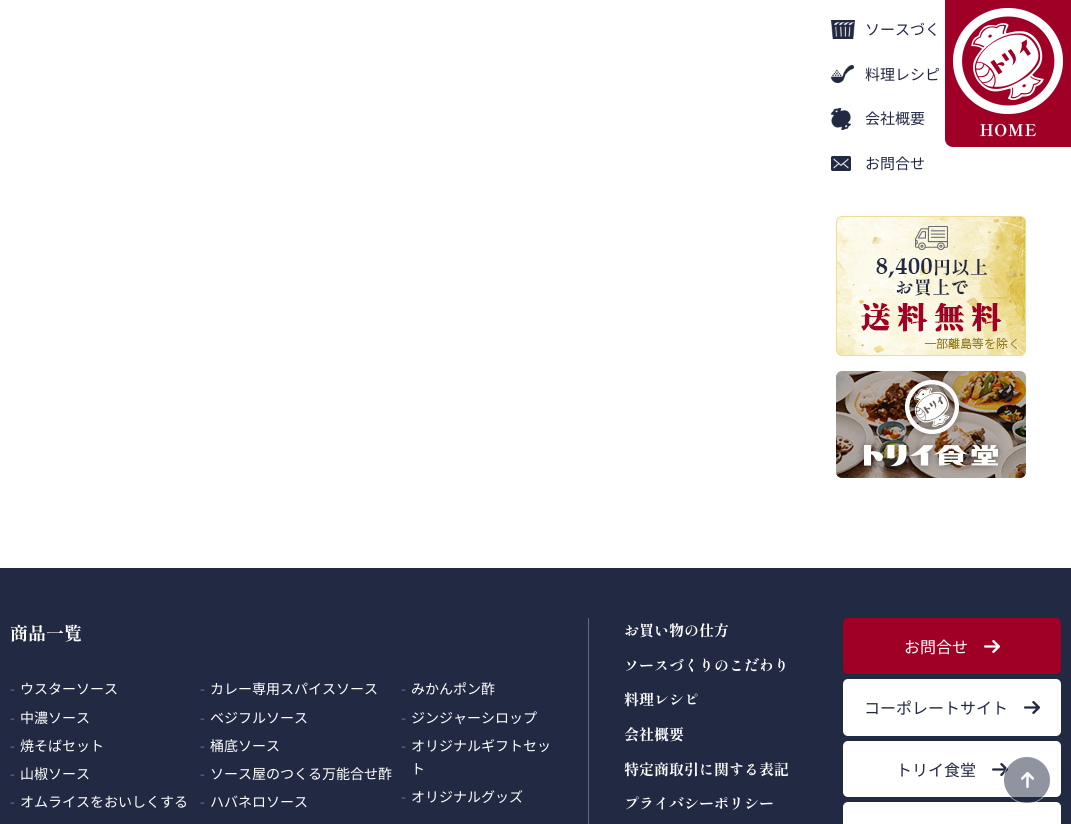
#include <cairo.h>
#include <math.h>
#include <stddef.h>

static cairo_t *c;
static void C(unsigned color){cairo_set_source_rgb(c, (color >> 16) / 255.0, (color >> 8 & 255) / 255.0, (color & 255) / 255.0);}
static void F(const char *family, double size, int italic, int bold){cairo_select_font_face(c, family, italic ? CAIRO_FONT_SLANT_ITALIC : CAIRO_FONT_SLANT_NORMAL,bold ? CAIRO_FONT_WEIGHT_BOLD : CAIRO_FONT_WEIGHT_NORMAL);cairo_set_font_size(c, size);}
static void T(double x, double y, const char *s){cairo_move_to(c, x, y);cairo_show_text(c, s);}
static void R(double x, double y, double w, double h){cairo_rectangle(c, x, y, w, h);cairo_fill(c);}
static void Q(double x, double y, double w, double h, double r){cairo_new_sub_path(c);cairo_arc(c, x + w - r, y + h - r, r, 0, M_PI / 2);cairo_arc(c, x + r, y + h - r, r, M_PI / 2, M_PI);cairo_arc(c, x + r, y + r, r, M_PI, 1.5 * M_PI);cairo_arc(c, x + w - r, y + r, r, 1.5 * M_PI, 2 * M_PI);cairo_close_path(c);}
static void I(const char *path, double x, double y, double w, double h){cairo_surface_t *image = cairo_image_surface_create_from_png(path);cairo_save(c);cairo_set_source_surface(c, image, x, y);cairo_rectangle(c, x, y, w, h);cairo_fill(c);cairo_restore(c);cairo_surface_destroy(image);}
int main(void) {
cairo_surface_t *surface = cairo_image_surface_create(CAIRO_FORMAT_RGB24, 1071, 824);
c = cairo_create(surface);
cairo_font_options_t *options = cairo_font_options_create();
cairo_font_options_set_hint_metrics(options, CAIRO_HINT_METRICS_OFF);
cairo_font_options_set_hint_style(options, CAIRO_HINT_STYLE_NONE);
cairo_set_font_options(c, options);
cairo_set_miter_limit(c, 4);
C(0xffffff);
cairo_paint(c);
I("1.png",831,20,24,19);
F("Noto Sans JP",15,0,0);
C(0x222943);
T(865,35,"ソースづく");
I("2.png",831,65,23,18);
T(865,80,"料理レシピ");
I("3.png",831,108,20,22);
T(865,124,"会社概要");
I("4.png",831,156,20,15);
T(865,169,"お問合せ");
I("5.png",836,216,190,140);
I("6.png",836,371,190,107);
I("7.png",945,0,126,147);
R(0,568,1071,256);
F("Shippori Mincho",18,0,1);
C(0xffffff);
T(10,640,"商品一覧");
F("Noto Sans JP",14,0,0);
C(0x6b79aa);
T(10,694,"-");
C(0xffffff);
T(20,694,"ウスターソース");
C(0x6b79aa);
T(10,723,"-");
C(0xffffff);
T(20,723,"中濃ソース");
C(0x6b79aa);
T(10,751,"-");
C(0xffffff);
T(20,751,"焼そばセット");
C(0x6b79aa);
T(10,779,"-");
C(0xffffff);
T(20,779,"山椒ソース");
C(0x6b79aa);
T(10,807,"-");
C(0xffffff);
T(20,807,"オムライスをおいしくする");
C(0x6b79aa);
T(200,694,"-");
C(0xffffff);
T(210,694,"カレー専用スパイスソース");
C(0x6b79aa);
T(200,723,"-");
C(0xffffff);
T(210,723,"ベジフルソース");
C(0x6b79aa);
T(200,751,"-");
C(0xffffff);
T(210,751,"桶底ソース");
C(0x6b79aa);
T(200,779,"-");
C(0xffffff);
T(210,779,"ソース屋のつくる万能合せ酢");
C(0x6b79aa);
T(200,807,"-");
C(0xffffff);
T(210,807,"ハバネロソース");
C(0x6b79aa);
T(401,694,"-");
C(0xffffff);
T(411,694,"みかんポン酢");
C(0x6b79aa);
T(401,723,"-");
C(0xffffff);
T(411,723,"ジンジャーシロップ");
C(0x6b79aa);
T(401,751,"-");
C(0xffffff);
T(411,751,"オリジナルギフトセッ");
T(411,774,"ト");
C(0x6b79aa);
T(401,802,"-");
C(0xffffff);
T(411,802,"オリジナルグッズ");
C(0x656a7c);
R(588,618,1,206);
F("Shippori Mincho",15,0,1);
C(0xffffff);
T(624,636,"お買い物の仕方");
T(624,671,"ソースづくりのこだわり");
T(624,705,"料理レシピ");
T(624,740,"会社概要");
T(624,775,"特定商取引に関する表記");
T(624,809,"プライバシーポリシー");
C(0xa00026);
Q(843,618,218,56,5);
cairo_fill(c);
F("Noto Sans JP",16,0,0);
C(0xffffff);
T(904,653,"お問合せ");
I("8.png",984,640,16,13);
Q(843,679,218,57,5);
cairo_fill(c);
C(0x222943);
T(864,714,"コーポレートサイト");
I("9.png",1024,701,16,13);
C(0xffffff);
Q(843,741,218,56,5);
cairo_fill(c);
C(0x222943);
T(896,776,"トリイ食堂");
I("9.png",992,763,16,13);
C(0xffffff);
Q(843,802,218,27,5);
cairo_fill(c);
I("10.png",1003,757,47,46);
cairo_surface_write_to_png(surface, "o.png");
cairo_font_options_destroy(options);
cairo_destroy(c);
cairo_surface_destroy(surface);
return 0;
}
